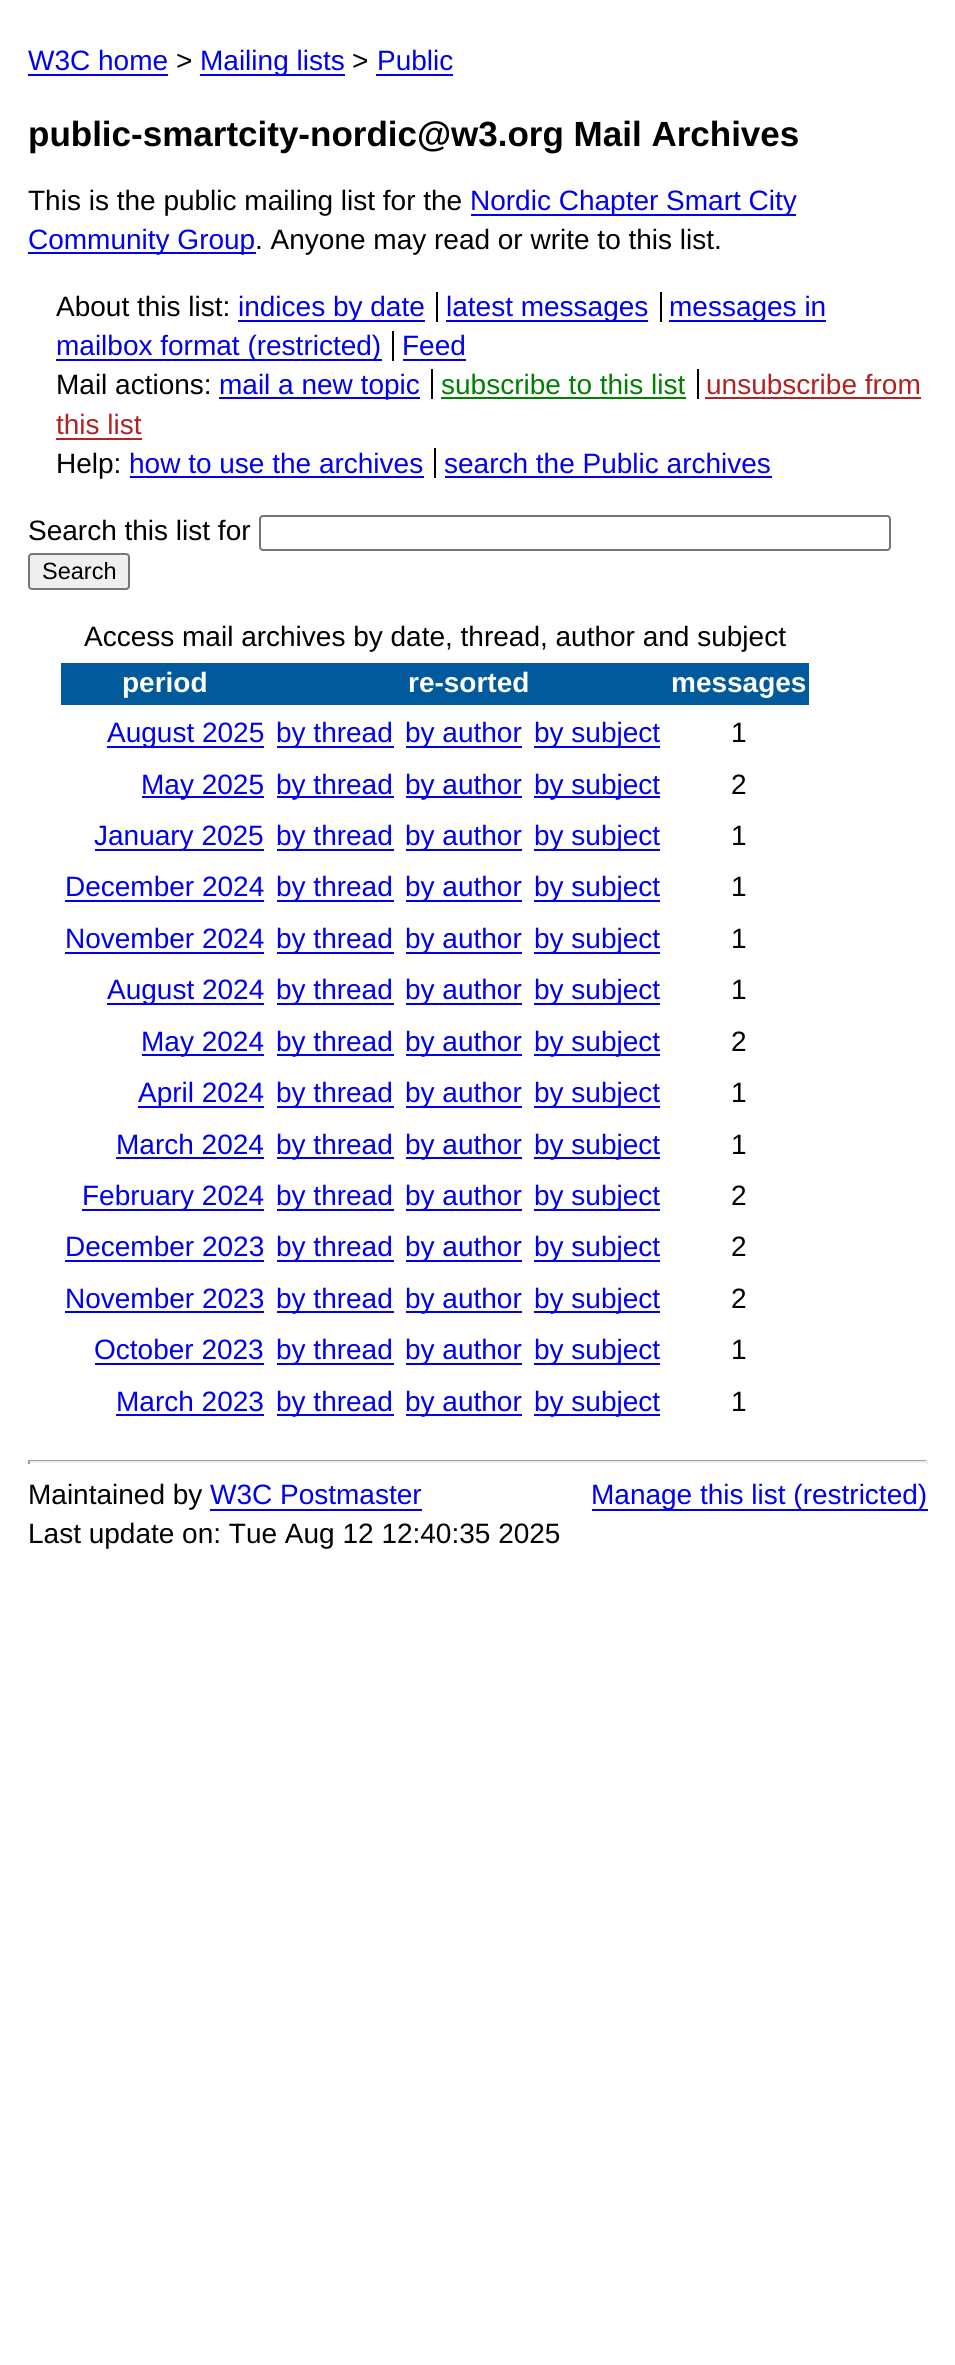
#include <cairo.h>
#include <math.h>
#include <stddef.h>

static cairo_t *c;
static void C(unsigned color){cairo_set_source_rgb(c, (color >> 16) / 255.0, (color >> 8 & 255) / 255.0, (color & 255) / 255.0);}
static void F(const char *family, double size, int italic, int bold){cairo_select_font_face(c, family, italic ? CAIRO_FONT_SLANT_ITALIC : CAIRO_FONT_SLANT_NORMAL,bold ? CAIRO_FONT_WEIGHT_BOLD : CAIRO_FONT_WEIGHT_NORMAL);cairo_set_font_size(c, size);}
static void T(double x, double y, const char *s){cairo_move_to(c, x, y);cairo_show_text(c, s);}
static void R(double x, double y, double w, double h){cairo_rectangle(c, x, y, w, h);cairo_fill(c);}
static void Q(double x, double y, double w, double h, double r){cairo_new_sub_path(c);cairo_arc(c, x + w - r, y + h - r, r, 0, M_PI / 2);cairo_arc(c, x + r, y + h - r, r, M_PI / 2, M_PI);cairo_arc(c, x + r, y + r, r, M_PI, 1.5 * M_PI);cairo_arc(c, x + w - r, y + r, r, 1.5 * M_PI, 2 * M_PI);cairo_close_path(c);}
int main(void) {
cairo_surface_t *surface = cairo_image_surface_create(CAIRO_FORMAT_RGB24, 955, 2365);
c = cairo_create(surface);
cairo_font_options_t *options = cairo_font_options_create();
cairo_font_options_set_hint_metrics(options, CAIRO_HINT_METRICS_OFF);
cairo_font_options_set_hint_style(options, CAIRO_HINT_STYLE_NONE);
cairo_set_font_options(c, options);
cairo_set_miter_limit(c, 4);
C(0xffffff);
cairo_paint(c);
F("Liberation Sans",28,0,0);
C(0x0000ee);
T(28,70,"W3C home");
R(28,74,140,2);
C(0x000000);
T(176,70,">");
C(0x0000ee);
R(200,74,145,2);
T(200,70,"Mailing lists");
C(0x000000);
T(352,70,">");
C(0x0000ee);
T(377,70,"Public");
R(376,74,77,2);
F("Liberation Sans",35,0,1);
C(0x000000);
T(28,146,"public-smartcity-nordic@w3.org Mail Archives");
F("Liberation Sans",28,0,0);
T(28,210,"This is the public mailing list for the");
C(0x0000ee);
R(471,214,325,2);
T(470,210,"Nordic Chapter Smart City");
R(28,252,228,2);
T(28,249,"Community Group");
C(0x000000);
T(255,249,". Anyone may read or write to this list.");
T(56,316,"About this list:");
C(0x0000ee);
R(238,320,187,2);
T(238,316,"indices by date");
R(446,320,202,2);
T(446,316,"latest messages");
C(0x000000);
R(436,292,2,30);
C(0x0000ee);
R(669,320,157,2);
T(669,316,"messages in");
C(0x000000);
R(660,292,2,30);
C(0x0000ee);
R(56,359,326,2);
T(56,355,"mailbox format (restricted)");
T(402,355,"Feed");
C(0x000000);
R(392,331,2,30);
C(0x0000ee);
R(403,359,63,2);
C(0x000000);
T(56,394,"Mail actions:");
C(0x0000ee);
R(219,397,201,2);
T(219,394,"mail a new topic");
C(0x008000);
T(441,394,"subscribe to this list");
C(0x000000);
R(431,369,2,30);
C(0x008000);
R(441,397,245,2);
C(0xb22222);
T(706,394,"unsubscribe from");
C(0x000000);
R(697,369,2,30);
C(0xb22222);
R(705,397,216,2);
T(56,434,"this list");
R(56,438,86,2);
C(0x000000);
T(56,473,"Help:");
C(0x0000ee);
T(129,473,"how to use the archives");
R(130,476,294,2);
T(444,473,"search the Public archives");
C(0x000000);
R(434,448,2,30);
C(0x0000ee);
R(445,476,327,2);
C(0x000000);
T(28,540,"Search this list for");
Q(260,516,630,34,3);
C(0x767676);
cairo_stroke(c);
C(0xefefef);
Q(29,554,100,35,3);
cairo_fill_preserve(c);
C(0x767676);
cairo_stroke(c);
F("Liberation Sans",23.5,0,0);
C(0x000000);
T(42,579,"Search");
F("Liberation Sans",28,0,0);
T(84,646,"Access mail archives by date, thread, author and subject");
C(0x005a9c);
R(61,663,748,42);
F("Liberation Sans",28,0,1);
C(0xffffff);
T(122,692,"period");
T(408,692,"re-sorted");
T(671,692,"messages");
C(0x0000ee);
R(107,746,157,2);
F("Liberation Sans",28,0,0);
T(107,742,"August 2025");
R(277,746,117,2);
T(276,742,"by thread");
R(406,746,116,2);
T(405,742,"by author");
R(534,746,126,2);
T(534,742,"by subject");
C(0x000000);
T(731,742,"1");
C(0x0000ee);
R(142,796,122,2);
T(141,794,"May 2025");
R(277,796,117,2);
T(276,794,"by thread");
R(406,796,116,2);
T(405,794,"by author");
R(534,796,126,2);
T(534,794,"by subject");
C(0x000000);
T(731,794,"2");
C(0x0000ee);
R(95,849,169,2);
T(94,845,"January 2025");
R(277,849,117,2);
T(276,845,"by thread");
R(406,849,116,2);
T(405,845,"by author");
R(534,849,126,2);
T(534,845,"by subject");
C(0x000000);
T(731,845,"1");
C(0x0000ee);
T(65,896,"December 2024");
R(65,900,199,2);
R(277,900,117,2);
T(276,896,"by thread");
R(406,900,116,2);
T(405,896,"by author");
R(534,900,126,2);
T(534,896,"by subject");
C(0x000000);
T(731,896,"1");
C(0x0000ee);
T(65,948,"November 2024");
R(65,952,199,2);
R(277,952,117,2);
T(276,948,"by thread");
R(406,952,116,2);
T(405,948,"by author");
R(534,952,126,2);
T(534,948,"by subject");
C(0x000000);
T(731,948,"1");
C(0x0000ee);
R(107,1003,157,2);
T(107,999,"August 2024");
R(277,1003,117,2);
T(276,999,"by thread");
R(406,1003,116,2);
T(405,999,"by author");
R(534,1003,126,2);
T(534,999,"by subject");
C(0x000000);
T(731,999,"1");
C(0x0000ee);
R(142,1054,122,2);
T(141,1051,"May 2024");
R(277,1054,117,2);
T(276,1051,"by thread");
R(406,1054,116,2);
T(405,1051,"by author");
R(534,1054,126,2);
T(534,1051,"by subject");
C(0x000000);
T(731,1051,"2");
C(0x0000ee);
R(138,1106,126,2);
T(138,1102,"April 2024");
R(277,1106,117,2);
T(276,1102,"by thread");
R(406,1106,116,2);
T(405,1102,"by author");
R(534,1106,126,2);
T(534,1102,"by subject");
C(0x000000);
T(731,1102,"1");
C(0x0000ee);
T(116,1154,"March 2024");
R(116,1157,148,2);
R(277,1157,117,2);
T(276,1154,"by thread");
R(406,1157,116,2);
T(405,1154,"by author");
R(534,1157,126,2);
T(534,1154,"by subject");
C(0x000000);
T(731,1154,"1");
C(0x0000ee);
R(82,1209,182,2);
T(82,1205,"February 2024");
R(277,1209,117,2);
T(276,1205,"by thread");
R(406,1209,116,2);
T(405,1205,"by author");
R(534,1209,126,2);
T(534,1205,"by subject");
C(0x000000);
T(731,1205,"2");
C(0x0000ee);
T(65,1256,"December 2023");
R(65,1260,199,2);
R(277,1260,117,2);
T(276,1256,"by thread");
R(406,1260,116,2);
T(405,1256,"by author");
R(534,1260,126,2);
T(534,1256,"by subject");
C(0x000000);
T(731,1256,"2");
C(0x0000ee);
T(65,1308,"November 2023");
R(65,1311,199,2);
R(277,1311,117,2);
T(276,1308,"by thread");
R(406,1311,116,2);
T(405,1308,"by author");
R(534,1311,126,2);
T(534,1308,"by subject");
C(0x000000);
T(731,1308,"2");
C(0x0000ee);
T(94,1359,"October 2023");
R(95,1363,169,2);
R(277,1363,117,2);
T(276,1359,"by thread");
R(406,1363,116,2);
T(405,1359,"by author");
R(534,1363,126,2);
T(534,1359,"by subject");
C(0x000000);
T(731,1359,"1");
C(0x0000ee);
T(116,1411,"March 2023");
R(116,1414,148,2);
R(277,1414,117,2);
T(276,1411,"by thread");
R(406,1414,116,2);
T(405,1411,"by author");
R(534,1414,126,2);
T(534,1411,"by subject");
C(0x000000);
T(731,1411,"1");
C(0x9f9f9f);
R(28,1460,900,1);
C(0xeeeeee);
R(926,1460,2,4);
R(28,1461,900,2);
C(0x9f9f9f);
R(28,1460,2,4);
C(0x000000);
T(28,1504,"Maintained by");
C(0x0000ee);
T(210,1504,"W3C Postmaster");
R(210,1509,212,2);
R(592,1509,336,2);
T(591,1504,"Manage this list (restricted)");
C(0x000000);
T(28,1543,"Last update on: Tue Aug 12 12:40:35 2025");
cairo_surface_write_to_png(surface, "o.png");
cairo_font_options_destroy(options);
cairo_destroy(c);
cairo_surface_destroy(surface);
return 0;
}
